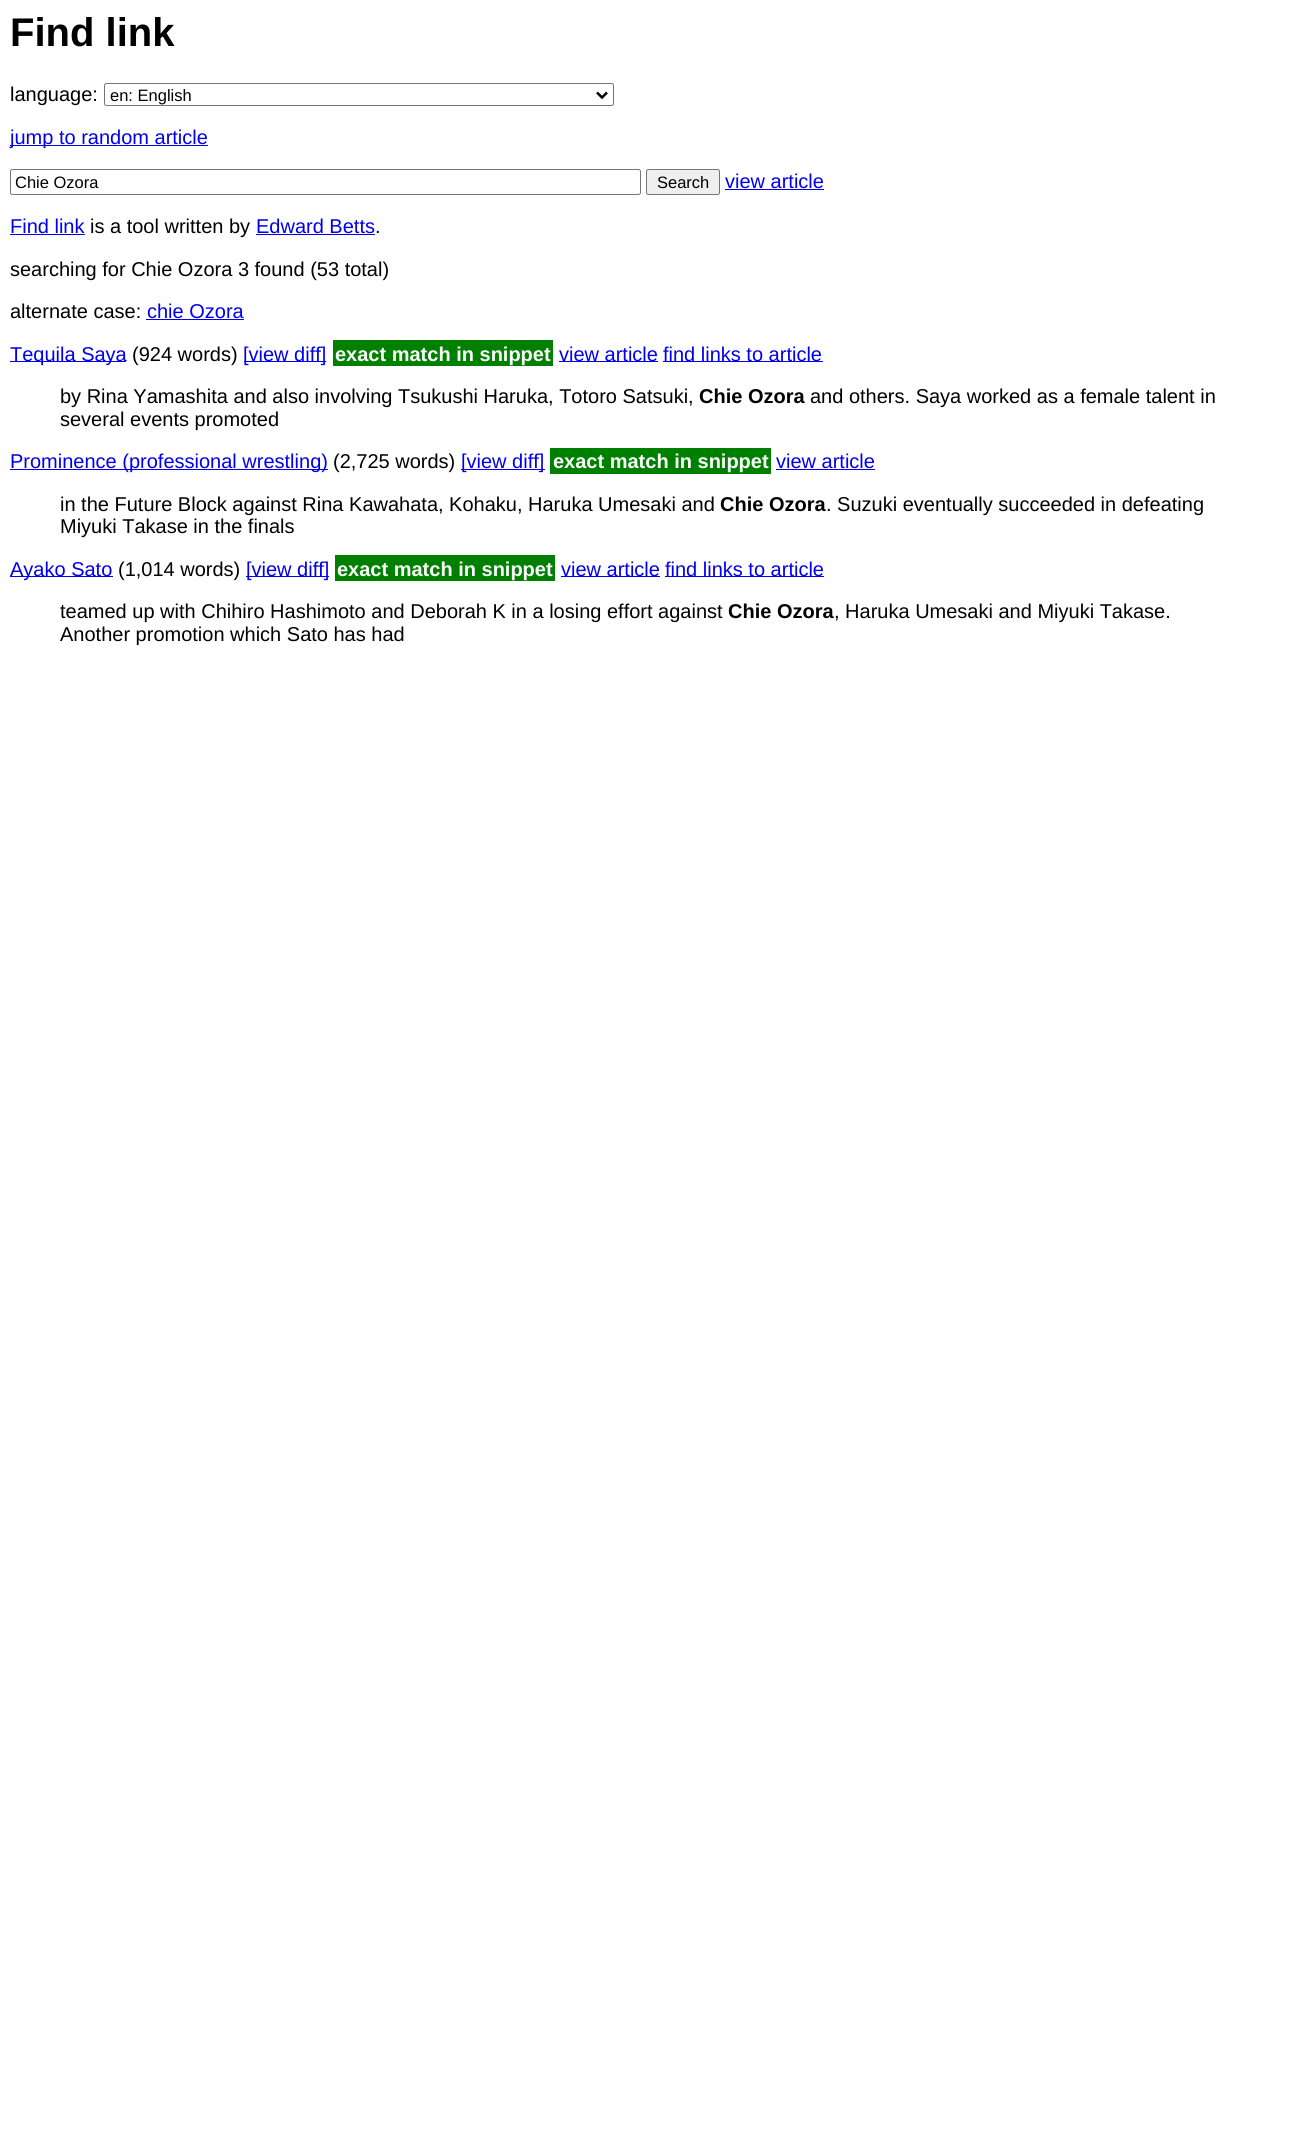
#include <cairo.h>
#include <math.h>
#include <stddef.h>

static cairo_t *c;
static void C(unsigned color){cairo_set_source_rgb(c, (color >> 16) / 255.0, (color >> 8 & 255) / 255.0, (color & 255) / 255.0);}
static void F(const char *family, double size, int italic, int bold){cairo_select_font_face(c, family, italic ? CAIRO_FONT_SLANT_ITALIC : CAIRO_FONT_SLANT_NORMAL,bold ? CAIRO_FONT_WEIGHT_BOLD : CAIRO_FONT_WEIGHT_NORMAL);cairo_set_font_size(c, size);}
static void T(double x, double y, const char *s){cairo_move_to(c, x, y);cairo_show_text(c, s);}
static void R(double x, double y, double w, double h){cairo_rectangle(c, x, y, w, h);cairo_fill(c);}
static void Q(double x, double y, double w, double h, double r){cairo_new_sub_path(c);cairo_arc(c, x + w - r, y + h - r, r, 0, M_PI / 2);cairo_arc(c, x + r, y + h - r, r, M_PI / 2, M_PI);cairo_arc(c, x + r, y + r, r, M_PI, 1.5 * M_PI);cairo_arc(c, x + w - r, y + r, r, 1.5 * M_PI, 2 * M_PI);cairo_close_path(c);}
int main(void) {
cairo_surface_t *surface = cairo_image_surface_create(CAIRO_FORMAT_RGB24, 1298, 2139);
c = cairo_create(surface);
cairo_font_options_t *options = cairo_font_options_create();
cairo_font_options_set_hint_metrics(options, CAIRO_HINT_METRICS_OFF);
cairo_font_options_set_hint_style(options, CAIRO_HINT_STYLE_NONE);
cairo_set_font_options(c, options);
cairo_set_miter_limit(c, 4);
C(0xffffff);
cairo_paint(c);
F("Liberation Sans",40,0,1);
C(0x000000);
T(10,46,"Find link");
F("Liberation Sans",20,0,0);
T(10,101,"language:");
Q(104.5,83.5,509,22,2);
C(0x767676);
cairo_set_line_width(c,1);
cairo_stroke(c);
cairo_new_path(c);
cairo_move_to(c,597,92.5);
cairo_line_to(c,602,97.5);
cairo_line_to(c,607,92.5);
C(0x000000);
cairo_set_line_width(c,2.5);
cairo_stroke(c);
F("Liberation Sans",16.5,0,0);
T(110,101,"en: English");
C(0x0000ee);
R(10,145,198,1);
F("Liberation Sans",20,0,0);
T(10,144,"jump to random article");
Q(10.5,169.5,630,25,2);
C(0x767676);
cairo_set_line_width(c,1);
cairo_stroke(c);
F("Liberation Sans",16.5,0,0);
C(0x000000);
T(15,188,"Chie Ozora");
C(0xefefef);
Q(646.5,169.5,73,25,2);
cairo_fill_preserve(c);
C(0x767676);
cairo_stroke(c);
C(0x000000);
T(657,188,"Search");
F("Liberation Sans",20,0,0);
C(0x0000ee);
T(725,188,"view article");
R(725,189,99,1);
T(10,233,"Find link");
R(10,234,75,1);
C(0x000000);
T(90,233,"is a tool written by");
C(0x0000ee);
T(256,233,"Edward Betts");
R(256,234,119,1);
C(0x000000);
T(375,233,".");
T(10,276,"searching for Chie Ozora 3 found (53 total)");
T(10,318,"alternate case:");
C(0x0000ee);
T(147,318,"chie Ozora");
R(146,319,98,1);
R(10,361,116,1);
T(10,361,"Tequila Saya");
C(0x000000);
T(132,361,"(924 words)");
C(0x0000ee);
R(244,361,82,1);
T(243,361,"[view diff]");
C(0x008000);
R(333,340,220,26);
F("Liberation Sans",20,0,1);
C(0xffffff);
T(335,361,"exact match in snippet");
C(0x0000ee);
R(559,361,99,1);
F("Liberation Sans",20,0,0);
T(559,361,"view article");
R(663,361,160,1);
T(663,361,"find links to article");
C(0x000000);
T(60,403,"by Rina Yamashita and also involving Tsukushi Haruka, Totoro Satsuki,");
F("Liberation Sans",20,0,1);
T(699,403,"Chie Ozora");
F("Liberation Sans",20,0,0);
T(810,403,"and others. Saya worked as a female talent in");
T(60,426,"several events promoted");
C(0x0000ee);
R(10,469,318,1);
T(10,468,"Prominence (professional wrestling)");
C(0x000000);
T(333,468,"(2,725 words)");
C(0x0000ee);
R(461,469,84,1);
T(461,468,"[view diff]");
C(0x008000);
R(550,448,221,26);
F("Liberation Sans",20,0,1);
C(0xffffff);
T(553,468,"exact match in snippet");
F("Liberation Sans",20,0,0);
C(0x0000ee);
T(776,468,"view article");
R(776,469,99,1);
C(0x000000);
T(60,511,"in the Future Block against Rina Kawahata, Kohaku, Haruka Umesaki and");
F("Liberation Sans",20,0,1);
T(720,511,"Chie Ozora");
F("Liberation Sans",20,0,0);
T(826,511,". Suzuki eventually succeeded in defeating");
T(60,533,"Miyuki Takase in the finals");
C(0x0000ee);
R(10,576,103,1);
T(10,576,"Ayako Sato");
C(0x000000);
T(118,576,"(1,014 words)");
C(0x0000ee);
R(246,576,83,1);
T(246,576,"[view diff]");
C(0x008000);
R(335,555,220,26);
F("Liberation Sans",20,0,1);
C(0xffffff);
T(337,576,"exact match in snippet");
C(0x0000ee);
R(561,576,99,1);
F("Liberation Sans",20,0,0);
T(561,576,"view article");
R(665,576,159,1);
T(665,576,"find links to article");
C(0x000000);
T(60,618,"teamed up with Chihiro Hashimoto and Deborah K in a losing effort against");
F("Liberation Sans",20,0,1);
T(728,618,"Chie Ozora");
F("Liberation Sans",20,0,0);
T(834,618,", Haruka Umesaki and Miyuki Takase.");
T(60,641,"Another promotion which Sato has had");
cairo_surface_write_to_png(surface, "o.png");
cairo_font_options_destroy(options);
cairo_destroy(c);
cairo_surface_destroy(surface);
return 0;
}
